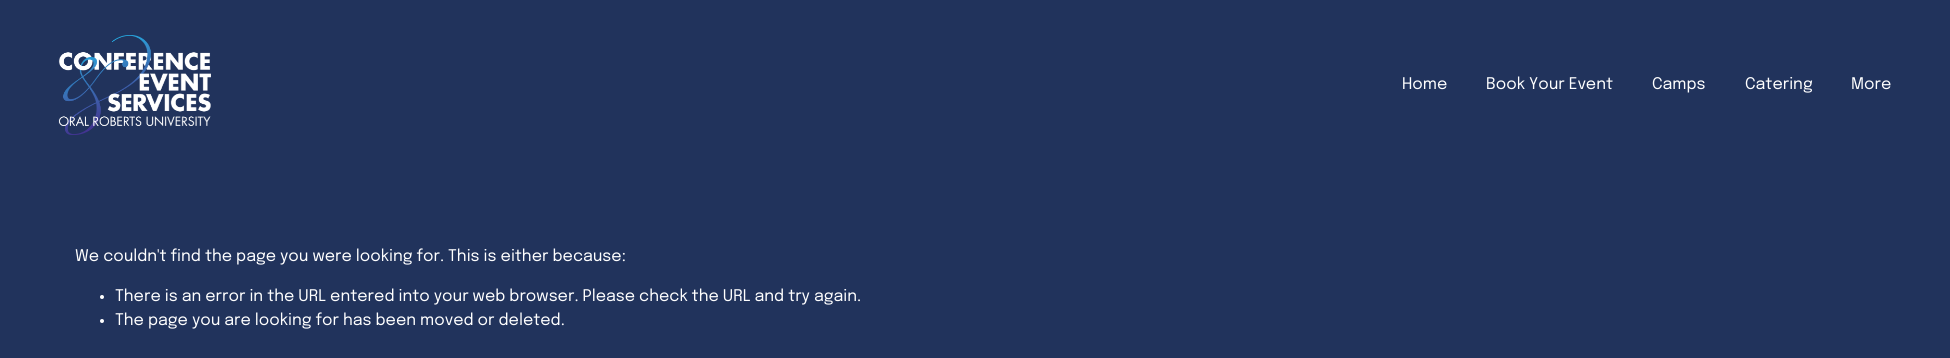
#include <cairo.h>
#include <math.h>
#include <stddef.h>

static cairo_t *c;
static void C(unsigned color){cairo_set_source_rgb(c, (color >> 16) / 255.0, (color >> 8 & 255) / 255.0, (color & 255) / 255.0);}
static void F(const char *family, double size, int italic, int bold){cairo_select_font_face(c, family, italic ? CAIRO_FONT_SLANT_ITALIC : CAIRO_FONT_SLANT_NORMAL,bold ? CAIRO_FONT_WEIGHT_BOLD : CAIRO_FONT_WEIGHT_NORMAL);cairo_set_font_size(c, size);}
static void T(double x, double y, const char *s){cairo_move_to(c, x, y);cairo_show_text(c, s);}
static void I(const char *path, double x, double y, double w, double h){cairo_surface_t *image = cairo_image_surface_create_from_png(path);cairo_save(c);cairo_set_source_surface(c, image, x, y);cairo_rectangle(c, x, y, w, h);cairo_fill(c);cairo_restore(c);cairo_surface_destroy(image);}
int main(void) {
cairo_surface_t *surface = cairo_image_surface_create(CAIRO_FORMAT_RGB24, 1950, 358);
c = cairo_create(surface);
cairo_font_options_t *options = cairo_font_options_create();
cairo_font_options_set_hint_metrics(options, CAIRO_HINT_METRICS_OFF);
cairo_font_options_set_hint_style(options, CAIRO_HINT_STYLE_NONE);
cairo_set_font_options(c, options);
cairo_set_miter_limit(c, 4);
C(0x21335c);
cairo_paint(c);
I("1.png",58,35,153,100);
F("Epilogue",16,0,0);
C(0xffffff);
T(1402,89,"Home");
T(1486,89,"Book Your Event");
T(1652,89,"Camps");
T(1745,89,"Catering");
T(1851,89,"More");
T(75,261,"We couldn't find the page you were looking for. This is either because:");
cairo_new_path(c);
cairo_arc(c,102,297,2,0,2 * M_PI);
cairo_fill(c);
T(115,301,"There is an error in the URL entered into your web browser. Please check the URL and try again.");
cairo_new_path(c);
cairo_arc(c,102,321,2,0,2 * M_PI);
cairo_fill(c);
T(115,325,"The page you are looking for has been moved or deleted.");
cairo_surface_write_to_png(surface, "o.png");
cairo_font_options_destroy(options);
cairo_destroy(c);
cairo_surface_destroy(surface);
return 0;
}
